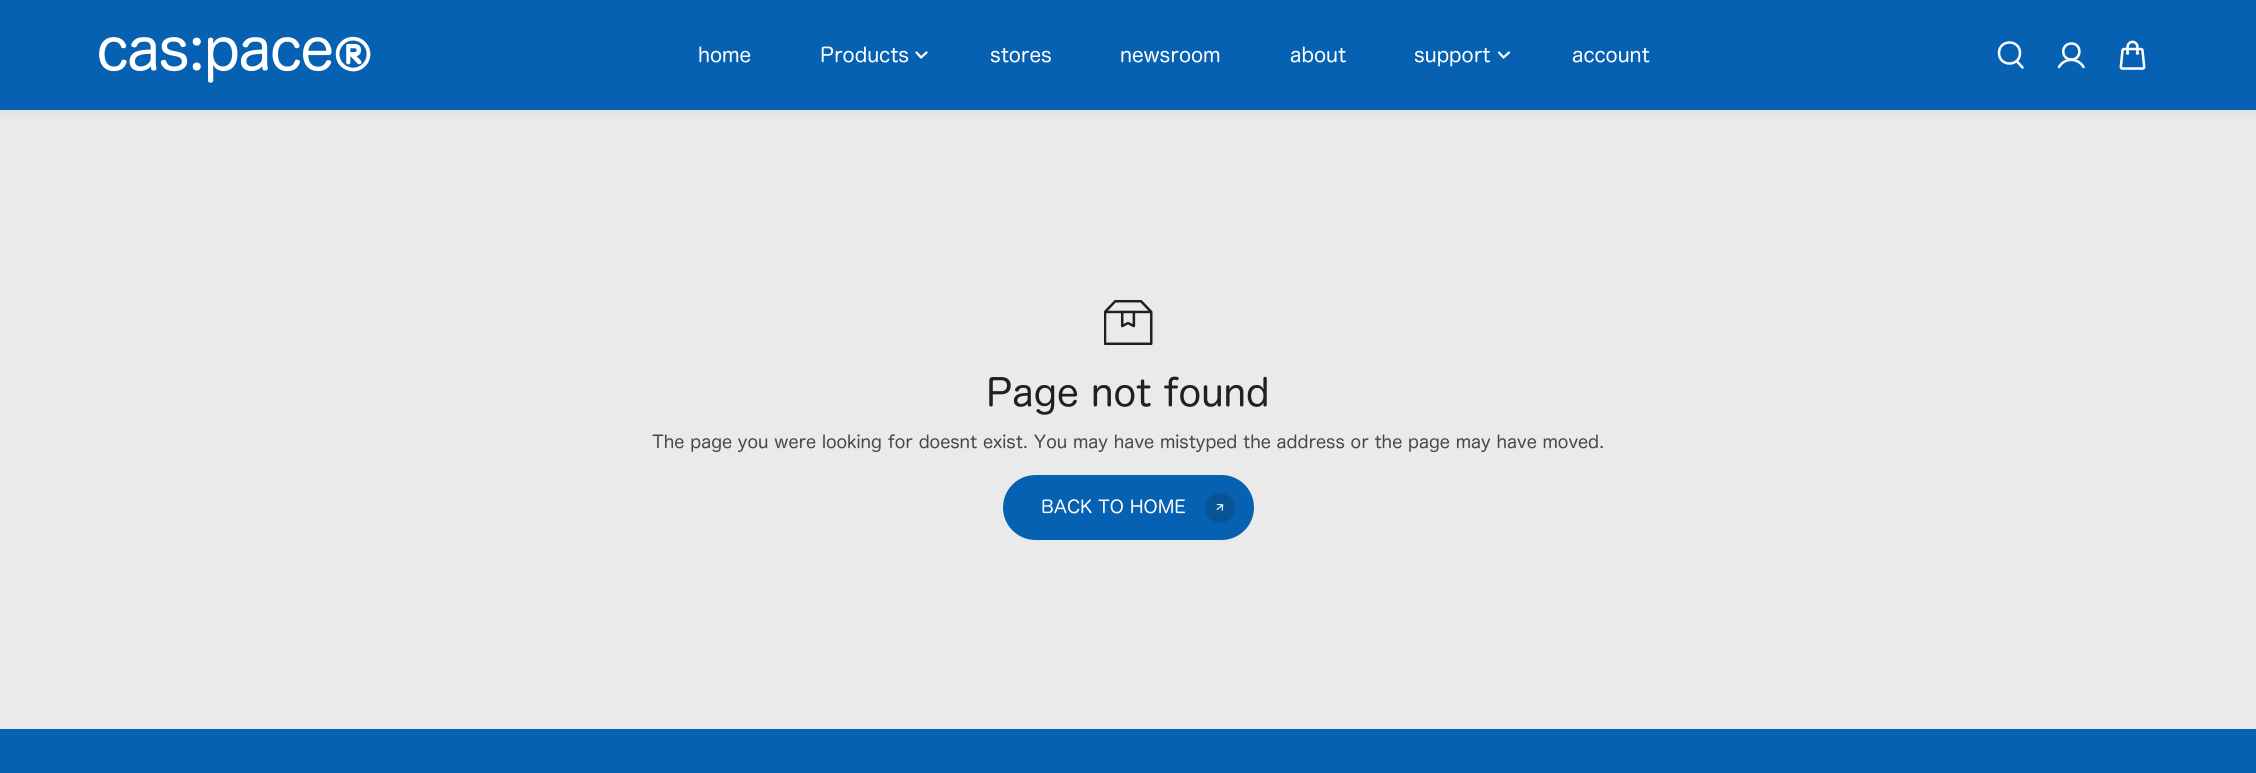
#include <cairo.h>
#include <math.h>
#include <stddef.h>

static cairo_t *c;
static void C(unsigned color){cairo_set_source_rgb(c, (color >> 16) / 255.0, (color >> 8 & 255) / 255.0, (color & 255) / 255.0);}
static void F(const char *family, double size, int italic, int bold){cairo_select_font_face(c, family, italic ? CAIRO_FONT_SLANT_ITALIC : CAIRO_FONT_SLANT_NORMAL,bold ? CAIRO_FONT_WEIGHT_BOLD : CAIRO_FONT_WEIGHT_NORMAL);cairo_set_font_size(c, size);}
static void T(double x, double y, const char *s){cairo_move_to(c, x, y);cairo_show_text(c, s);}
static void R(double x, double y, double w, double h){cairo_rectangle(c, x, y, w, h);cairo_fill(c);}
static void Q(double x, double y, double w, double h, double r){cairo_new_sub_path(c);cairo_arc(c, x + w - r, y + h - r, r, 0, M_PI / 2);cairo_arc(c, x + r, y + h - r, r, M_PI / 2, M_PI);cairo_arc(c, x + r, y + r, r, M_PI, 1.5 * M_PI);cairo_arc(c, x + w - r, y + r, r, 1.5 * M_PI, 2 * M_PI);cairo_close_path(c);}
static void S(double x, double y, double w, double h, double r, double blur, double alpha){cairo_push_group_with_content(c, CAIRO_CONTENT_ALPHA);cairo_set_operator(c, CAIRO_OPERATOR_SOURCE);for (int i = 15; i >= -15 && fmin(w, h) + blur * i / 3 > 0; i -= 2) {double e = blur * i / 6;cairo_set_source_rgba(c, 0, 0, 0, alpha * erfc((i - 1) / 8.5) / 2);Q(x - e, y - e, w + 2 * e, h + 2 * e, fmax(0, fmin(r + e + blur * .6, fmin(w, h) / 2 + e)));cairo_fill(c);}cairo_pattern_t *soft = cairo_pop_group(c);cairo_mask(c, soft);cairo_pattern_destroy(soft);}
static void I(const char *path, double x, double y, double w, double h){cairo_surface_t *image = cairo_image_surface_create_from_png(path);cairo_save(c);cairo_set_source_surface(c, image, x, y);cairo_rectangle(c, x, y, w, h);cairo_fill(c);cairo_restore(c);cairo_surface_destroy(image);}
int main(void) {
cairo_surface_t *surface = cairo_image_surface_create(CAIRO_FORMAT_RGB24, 2256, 773);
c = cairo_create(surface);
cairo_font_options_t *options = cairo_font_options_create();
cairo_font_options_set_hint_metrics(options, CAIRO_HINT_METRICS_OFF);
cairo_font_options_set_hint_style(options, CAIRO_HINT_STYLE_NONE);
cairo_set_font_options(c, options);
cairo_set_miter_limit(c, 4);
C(0xeaeaea);
cairo_paint(c);
C(0x000000);
S(0,4,2256,110,0,5,.05);
C(0x0761b2);
R(0,0,2256,110);
I("1.png",99,36,272,47);
F("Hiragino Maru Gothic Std",20,0,0);
C(0xffffff);
T(698,62,"home");
T(820,62,"Products");
cairo_new_path(c);
cairo_move_to(c,916.5,52.5);
cairo_line_to(c,921,57.5);
cairo_line_to(c,926.5,52.5);
cairo_set_line_width(c,2.2);
cairo_set_line_cap(c,CAIRO_LINE_CAP_ROUND);
cairo_set_line_join(c,CAIRO_LINE_JOIN_ROUND);
cairo_stroke(c);
T(990,62,"stores");
T(1120,62,"newsroom");
T(1290,62,"about");
T(1414,62,"support");
cairo_new_path(c);
cairo_move_to(c,1499,52.5);
cairo_line_to(c,1503.5,57.5);
cairo_line_to(c,1509,52.5);
cairo_stroke(c);
T(1572,62,"account");
cairo_new_path(c);
cairo_move_to(c,2017,61.5);
cairo_line_to(c,2022.5,67.5);
cairo_move_to(c,2020,53);
cairo_curve_to(c,2020,67,1999,67,1999,53);
cairo_curve_to(c,1999,39,2020,39,2020,53);
cairo_close_path(c);
cairo_set_line_width(c,2.5);
cairo_stroke(c);
cairo_new_path(c);
cairo_move_to(c,2071.5,59.5);
cairo_curve_to(c,2082,59.5,2082,43.5,2071.5,43.5);
cairo_curve_to(c,2060.5,43.5,2060.5,59.5,2071.5,59.5);
cairo_close_path(c);
cairo_set_line_cap(c,CAIRO_LINE_CAP_BUTT);
cairo_set_line_join(c,CAIRO_LINE_JOIN_MITER);
cairo_stroke(c);
cairo_new_path(c);
cairo_move_to(c,2059,67);
cairo_curve_to(c,2064.5,57.5,2078,57.5,2083.5,67);
cairo_set_line_cap(c,CAIRO_LINE_CAP_ROUND);
cairo_set_line_join(c,CAIRO_LINE_JOIN_ROUND);
cairo_stroke(c);
I("2.png",2119,40,27,30);
I("3.png",1104,300,49,45);
F("Hiragino Maru Gothic Std",37.5,0,0);
C(0x202020);
T(986,406,"Page not found");
F("Hiragino Maru Gothic Std",17.5,0,0);
C(0x484848);
T(652,448,"The page you were looking for doesnt exist. You may have mistyped the address or the page may have moved.");
C(0x0761b2);
Q(1003,475,251,65,32.5);
cairo_fill(c);
cairo_save(c);
Q(1205,493,30,30,15);
cairo_clip(c);
C(0x095496);
Q(1003,475,251,65,32.5);
cairo_fill(c);
cairo_restore(c);
I("4.png",1216,504,8,7);
C(0xffffff);
T(1041,513,"BACK TO HOME");
C(0x0761b2);
R(0,729,2256,44);
cairo_surface_write_to_png(surface, "o.png");
cairo_font_options_destroy(options);
cairo_destroy(c);
cairo_surface_destroy(surface);
return 0;
}
